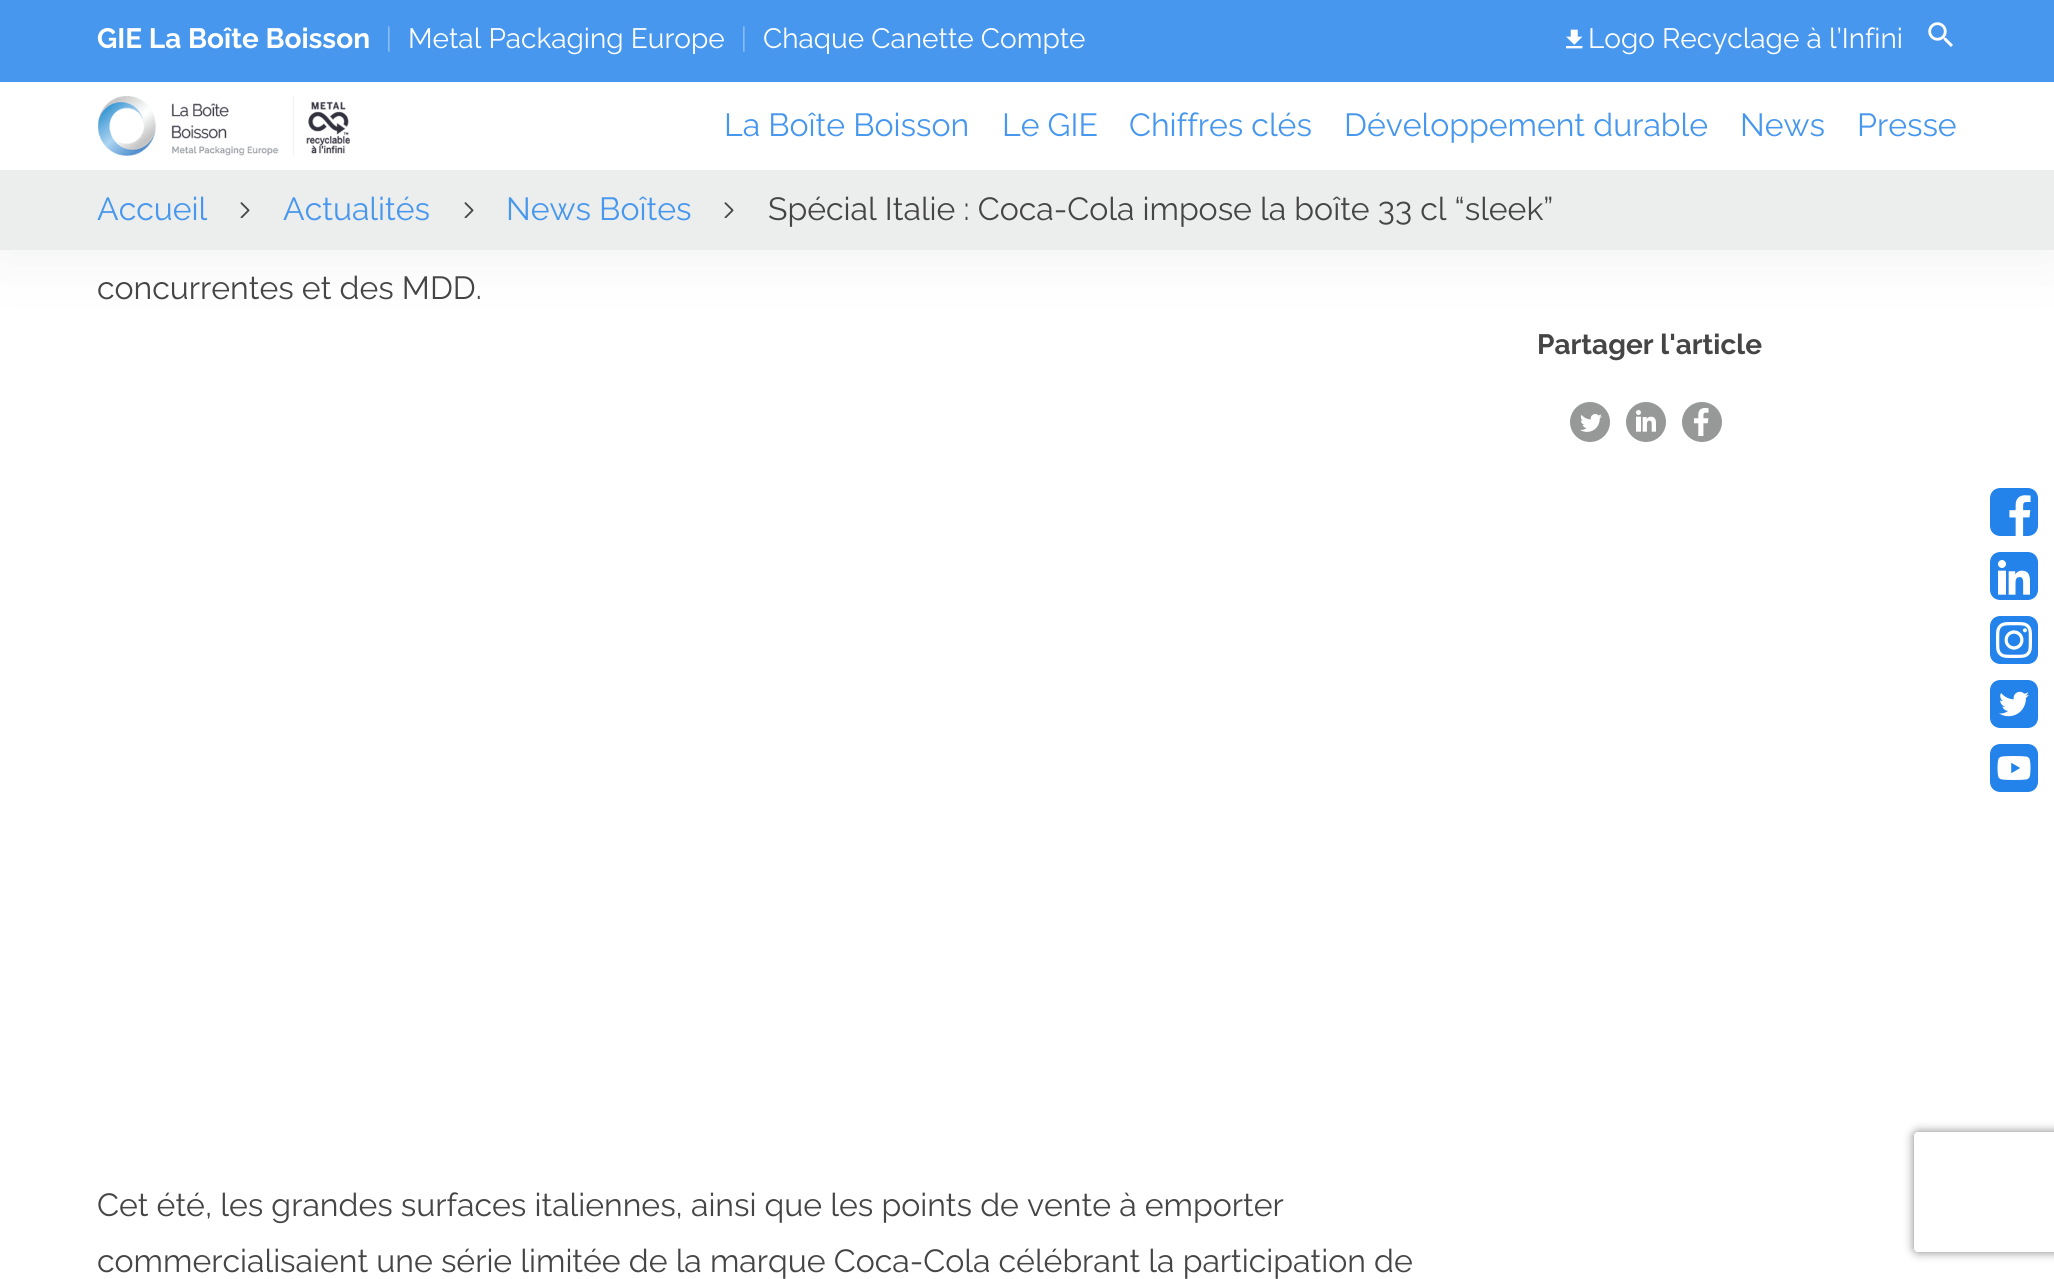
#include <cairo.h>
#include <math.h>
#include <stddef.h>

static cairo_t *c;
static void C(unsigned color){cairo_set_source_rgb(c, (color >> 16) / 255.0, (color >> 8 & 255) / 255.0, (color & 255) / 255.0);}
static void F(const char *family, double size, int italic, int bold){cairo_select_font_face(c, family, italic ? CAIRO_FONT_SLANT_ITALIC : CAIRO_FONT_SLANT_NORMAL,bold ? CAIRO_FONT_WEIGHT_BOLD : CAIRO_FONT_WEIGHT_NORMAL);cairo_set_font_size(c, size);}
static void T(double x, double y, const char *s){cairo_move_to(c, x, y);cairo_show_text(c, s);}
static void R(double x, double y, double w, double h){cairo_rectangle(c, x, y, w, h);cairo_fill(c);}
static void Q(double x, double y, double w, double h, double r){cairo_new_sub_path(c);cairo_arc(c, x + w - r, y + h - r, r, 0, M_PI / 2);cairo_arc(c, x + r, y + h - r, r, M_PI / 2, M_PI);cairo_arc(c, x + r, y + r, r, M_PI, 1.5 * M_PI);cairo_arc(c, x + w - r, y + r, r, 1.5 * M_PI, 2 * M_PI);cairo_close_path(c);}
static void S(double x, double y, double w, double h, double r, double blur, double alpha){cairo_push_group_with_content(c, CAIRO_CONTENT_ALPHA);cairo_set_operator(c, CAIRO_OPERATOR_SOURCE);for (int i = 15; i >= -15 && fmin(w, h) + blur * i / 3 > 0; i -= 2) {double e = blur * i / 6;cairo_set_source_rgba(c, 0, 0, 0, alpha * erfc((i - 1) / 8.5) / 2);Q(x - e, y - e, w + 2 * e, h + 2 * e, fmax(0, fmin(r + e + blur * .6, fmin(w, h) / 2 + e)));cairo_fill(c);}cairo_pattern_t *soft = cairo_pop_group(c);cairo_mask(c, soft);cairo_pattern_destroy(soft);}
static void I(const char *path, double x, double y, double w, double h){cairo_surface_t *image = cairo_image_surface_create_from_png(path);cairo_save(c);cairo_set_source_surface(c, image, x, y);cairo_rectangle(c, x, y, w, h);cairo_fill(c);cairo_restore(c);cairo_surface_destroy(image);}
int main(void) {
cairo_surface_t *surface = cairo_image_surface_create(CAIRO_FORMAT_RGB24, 2054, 1279);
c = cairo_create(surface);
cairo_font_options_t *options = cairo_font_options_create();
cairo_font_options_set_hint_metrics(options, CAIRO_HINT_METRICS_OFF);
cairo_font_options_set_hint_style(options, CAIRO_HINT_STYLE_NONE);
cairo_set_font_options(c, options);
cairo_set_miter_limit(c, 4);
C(0xffffff);
cairo_paint(c);
C(0x49525b);
S(0,0,2054,250,0,32,.1);
C(0x4697ed);
R(0,0,2054,82);
F("Raleway",28,0,1);
C(0xffffff);
T(97,48,"GIE La Boîte Boisson");
F("Raleway Thin",28,0,0);
T(386,48,"|");
F("Raleway",28,0,0);
T(408,48,"Metal Packaging Europe");
F("Raleway Thin",28,0,0);
T(741,48,"|");
F("Raleway",28,0,0);
T(763,48,"Chaque Canette Compte");
I("1.png",1566,29,17,20);
T(1588,48,"Logo Recyclage à l’Infini");
I("2.png",1928,22,25,25);
R(0,82,2054,88);
I("3.png",98,96,252,60);
F("Raleway",32,0,0);
C(0x4697ed);
T(724,136,"La Boîte Boisson");
T(1002,136,"Le GIE");
T(1129,136,"Chiffres clés");
T(1344,136,"Développement durable");
T(1740,136,"News");
T(1857,136,"Presse");
C(0xeceded);
R(0,170,2054,80);
C(0x4697ed);
T(97,220,"Accueil");
I("4.png",240,202,10,16);
T(283,220,"Actualités");
I("4.png",464,202,10,16);
T(506,220,"News Boîtes");
I("4.png",724,202,10,16);
C(0x454545);
T(768,220,"Spécial Italie : Coca-Cola impose la boîte 33 cl “sleek”");
T(97,299,"concurrentes et des MDD.");
T(97,1216,"Cet été, les grandes surfaces italiennes, ainsi que les points de vente à emporter");
T(97,1272,"commercialisaient une série limitée de la marque Coca-Cola célébrant la participation de");
F("Raleway",28,0,1);
T(1537,354,"Partager l'article");
I("5.png",1570,402,40,40);
I("6.png",1626,402,40,40);
I("7.png",1682,402,40,40);
I("8.png",1990,488,48,48);
I("9.png",1990,552,48,48);
I("10.png",1990,616,48,48);
I("11.png",1990,680,48,48);
I("12.png",1990,744,48,48);
cairo_save(c);
cairo_set_fill_rule(c,CAIRO_FILL_RULE_EVEN_ODD);
cairo_new_path(c);
cairo_move_to(c,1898,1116);
cairo_line_to(c,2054,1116);
cairo_line_to(c,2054,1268);
cairo_line_to(c,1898,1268);
cairo_close_path(c);
cairo_move_to(c,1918,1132);
cairo_line_to(c,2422,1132);
cairo_curve_to(c,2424,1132,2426,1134,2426,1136);
cairo_line_to(c,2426,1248);
cairo_curve_to(c,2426,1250,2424,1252,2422,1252);
cairo_line_to(c,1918,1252);
cairo_curve_to(c,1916,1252,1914,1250,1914,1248);
cairo_line_to(c,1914,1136);
cairo_curve_to(c,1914,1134,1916,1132,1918,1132);
cairo_close_path(c);
cairo_clip(c);
C(0x808080);
S(1914,1132,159,120,4,5,1);
cairo_restore(c);
cairo_surface_write_to_png(surface, "o.png");
cairo_font_options_destroy(options);
cairo_destroy(c);
cairo_surface_destroy(surface);
return 0;
}
